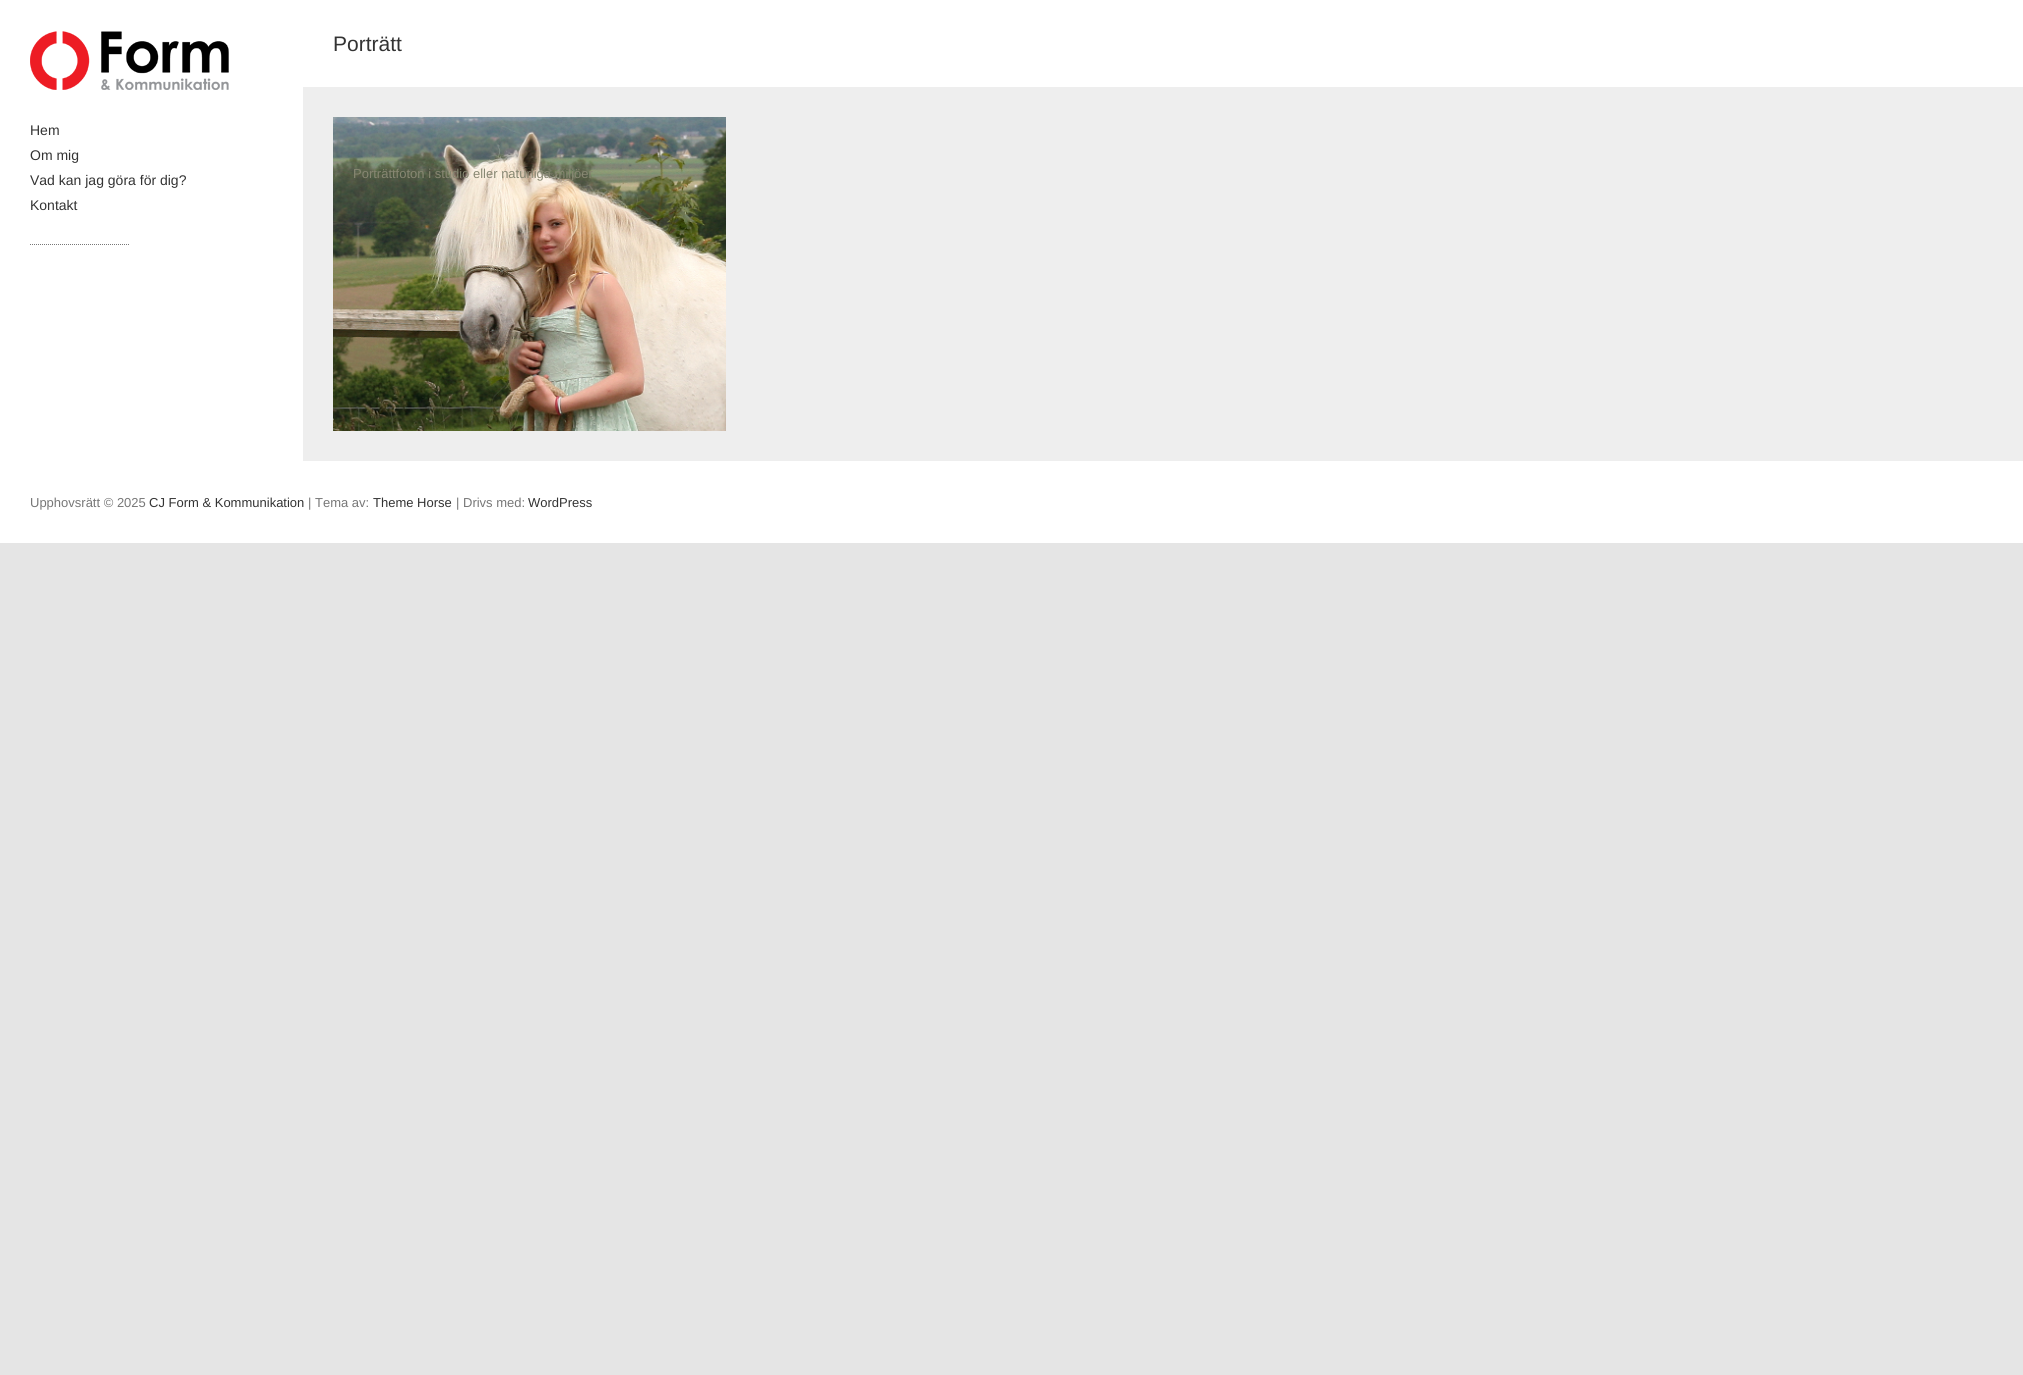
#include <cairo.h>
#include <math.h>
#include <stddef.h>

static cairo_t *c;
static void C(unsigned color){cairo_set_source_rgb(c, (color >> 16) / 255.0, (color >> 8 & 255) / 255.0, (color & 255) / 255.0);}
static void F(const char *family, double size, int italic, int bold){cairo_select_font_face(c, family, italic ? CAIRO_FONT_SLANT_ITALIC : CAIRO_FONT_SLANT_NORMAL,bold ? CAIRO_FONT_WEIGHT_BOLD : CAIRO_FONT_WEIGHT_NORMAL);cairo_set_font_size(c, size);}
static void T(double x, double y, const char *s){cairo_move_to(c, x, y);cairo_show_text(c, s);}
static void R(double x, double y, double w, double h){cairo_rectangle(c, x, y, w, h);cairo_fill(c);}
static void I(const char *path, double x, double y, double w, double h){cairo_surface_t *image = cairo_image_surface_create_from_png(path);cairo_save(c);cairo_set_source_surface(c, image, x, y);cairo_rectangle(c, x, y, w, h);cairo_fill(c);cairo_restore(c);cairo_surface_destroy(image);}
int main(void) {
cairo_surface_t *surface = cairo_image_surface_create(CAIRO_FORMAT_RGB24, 2023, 1375);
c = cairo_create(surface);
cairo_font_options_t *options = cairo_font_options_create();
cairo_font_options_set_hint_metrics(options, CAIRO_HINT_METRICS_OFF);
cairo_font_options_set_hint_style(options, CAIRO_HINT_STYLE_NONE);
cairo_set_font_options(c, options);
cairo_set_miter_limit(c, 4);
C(0xe5e5e5);
cairo_paint(c);
C(0xeeeeee);
R(303,87,1720,374);
C(0xffffff);
R(0,0,303,461);
R(303,0,1720,87);
F("Liberation Sans",21,0,0);
C(0x333333);
T(333,51,"Porträtt");
I("1.png",333,117,393,314);
F("Liberation Sans",13,0,0);
C(0x878772);
T(353,178,"Porträttfoton i studio eller naturliga miljöer");
I("2.png",30,31,199,59);
F("Liberation Sans",14,0,0);
C(0x333333);
T(30,135,"Hem");
T(30,160,"Om mig");
T(30,185,"Vad kan jag göra för dig?");
T(30,210,"Kontakt");
cairo_new_path(c);
cairo_move_to(c,30,244.5);
cairo_line_to(c,130,244.5);
C(0x777777);
cairo_set_line_width(c,1);
cairo_set_dash(c,(double[]){1,1},2,0);
cairo_stroke(c);
C(0xffffff);
R(0,461,2023,82);
F("Liberation Sans",13,0,0);
C(0x777777);
T(30,507,"Upphovsrätt © 2025");
C(0x333333);
T(149,507,"CJ Form & Kommunikation");
C(0x777777);
T(308,507,"| Tema av:");
C(0x333333);
T(373,507,"Theme Horse");
C(0x777777);
T(456,507,"| Drivs med:");
C(0x333333);
T(528,507,"WordPress");
cairo_surface_write_to_png(surface, "o.png");
cairo_font_options_destroy(options);
cairo_destroy(c);
cairo_surface_destroy(surface);
return 0;
}
